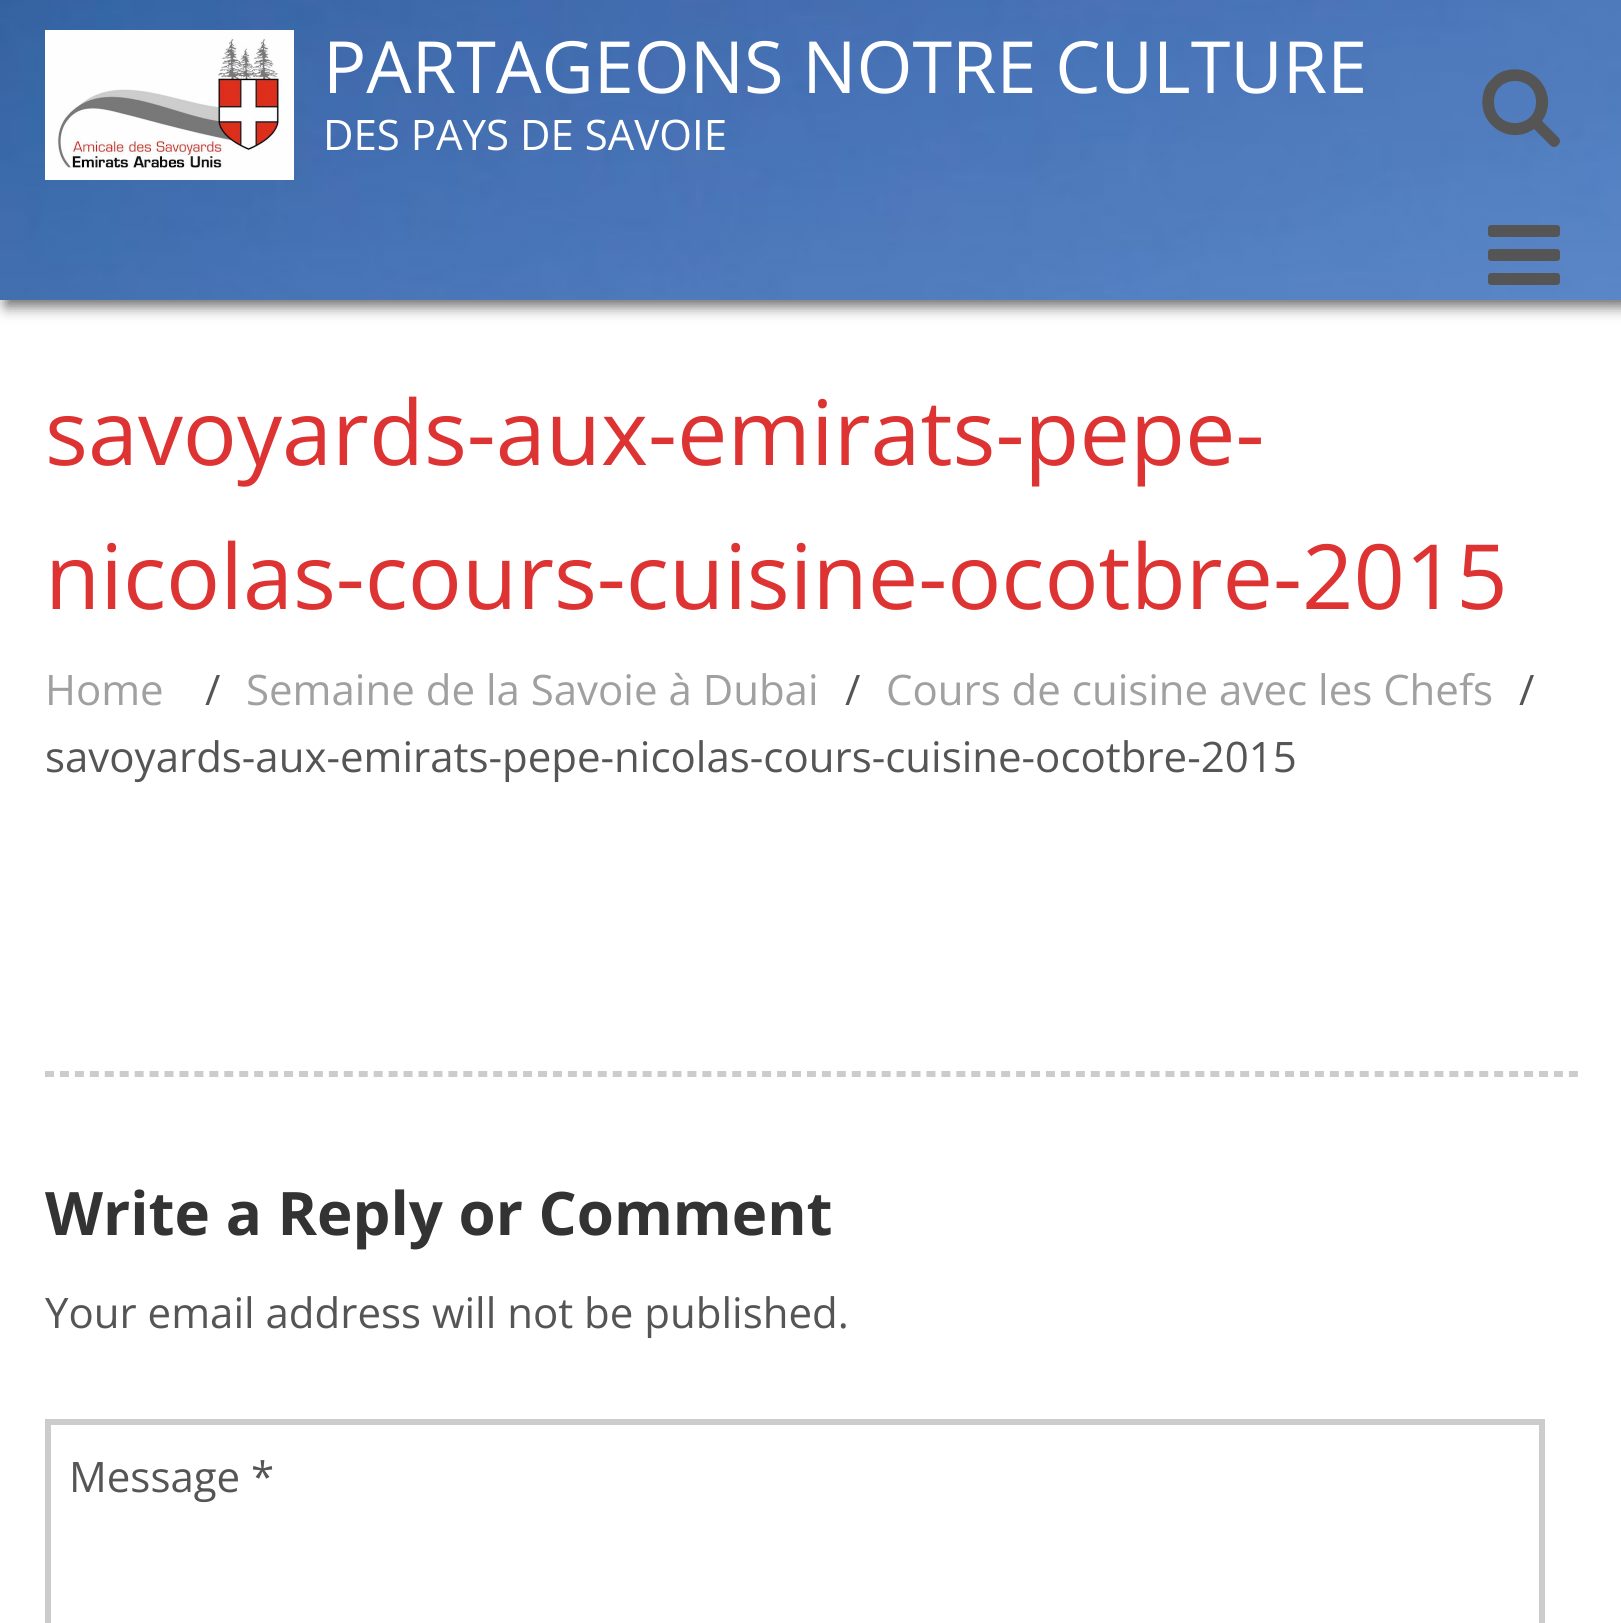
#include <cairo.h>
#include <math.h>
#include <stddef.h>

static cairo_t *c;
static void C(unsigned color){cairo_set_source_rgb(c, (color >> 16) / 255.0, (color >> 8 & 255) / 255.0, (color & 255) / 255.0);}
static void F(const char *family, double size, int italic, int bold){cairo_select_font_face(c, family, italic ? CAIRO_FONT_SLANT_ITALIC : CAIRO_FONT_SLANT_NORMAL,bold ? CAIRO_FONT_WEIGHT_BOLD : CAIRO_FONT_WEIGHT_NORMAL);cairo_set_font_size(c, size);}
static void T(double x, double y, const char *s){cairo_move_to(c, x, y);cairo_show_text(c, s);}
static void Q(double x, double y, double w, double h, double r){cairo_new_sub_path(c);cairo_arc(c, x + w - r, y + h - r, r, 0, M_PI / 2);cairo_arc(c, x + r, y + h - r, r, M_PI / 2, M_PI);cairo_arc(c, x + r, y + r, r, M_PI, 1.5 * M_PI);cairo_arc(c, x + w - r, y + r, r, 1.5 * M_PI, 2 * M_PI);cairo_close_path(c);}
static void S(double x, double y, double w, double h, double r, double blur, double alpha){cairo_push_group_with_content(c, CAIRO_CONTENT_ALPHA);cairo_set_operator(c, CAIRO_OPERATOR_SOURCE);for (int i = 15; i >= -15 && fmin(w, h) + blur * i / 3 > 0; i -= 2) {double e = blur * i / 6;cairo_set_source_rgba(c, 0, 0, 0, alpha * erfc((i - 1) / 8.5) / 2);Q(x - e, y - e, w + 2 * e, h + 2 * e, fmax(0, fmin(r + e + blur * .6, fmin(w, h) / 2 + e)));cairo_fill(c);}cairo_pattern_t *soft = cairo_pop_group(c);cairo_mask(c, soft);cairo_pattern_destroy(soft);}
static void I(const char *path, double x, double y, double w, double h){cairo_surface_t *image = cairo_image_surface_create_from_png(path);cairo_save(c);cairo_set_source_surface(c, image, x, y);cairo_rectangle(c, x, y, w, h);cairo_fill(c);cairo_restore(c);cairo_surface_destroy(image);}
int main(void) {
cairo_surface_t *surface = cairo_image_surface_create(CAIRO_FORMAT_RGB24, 1621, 1623);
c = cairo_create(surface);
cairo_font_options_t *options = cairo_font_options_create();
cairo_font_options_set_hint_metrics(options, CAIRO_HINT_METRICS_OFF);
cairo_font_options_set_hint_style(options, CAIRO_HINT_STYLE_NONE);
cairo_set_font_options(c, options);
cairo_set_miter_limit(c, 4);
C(0xffffff);
cairo_paint(c);
C(0x666666);
S(6,6,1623,300,0,7.5,1);
I("1.png",0,0,1621,300);
I("2.png",45,30,249,150);
F("Open Sans",72,0,0);
C(0xffffff);
T(323,93,"PARTAGEONS NOTRE CULTURE");
F("Open Sans",42,0,0);
T(323,150,"DES PAYS DE SAVOIE");
C(0x555555);
cairo_new_path(c);
cairo_move_to(c,1536,102);
cairo_curve_to(c,1536,130,1494,130,1494,102);
cairo_curve_to(c,1494,74,1536,74,1536,102);
cairo_close_path(c);
cairo_move_to(c,1560,141);
cairo_curve_to(c,1560,139,1559,138,1558,137);
cairo_line_to(c,1542,121);
cairo_curve_to(c,1559,97,1538,64,1508,70);
cairo_curve_to(c,1502,71,1496,74,1492,79);
cairo_curve_to(c,1487,83,1484,89,1483,95);
cairo_curve_to(c,1477,125,1510,146,1534,129);
cairo_line_to(c,1550,145);
cairo_curve_to(c,1551,146,1552,147,1554,147);
cairo_curve_to(c,1557,147,1560,144,1560,141);
cairo_close_path(c);
cairo_fill(c);
I("3.png",1488,225,72,60);
F("Open Sans",90,0,0);
C(0xdd3333);
T(45,465,"savoyards-aux-emirats-pepe-");
T(45,609,"nicolas-cours-cuisine-ocotbre-2015");
F("Open Sans",42,0,0);
C(0xa0a0a0);
T(45,705,"Home");
C(0x555555);
T(205,705,"/");
C(0xa0a0a0);
T(246,705,"Semaine de la Savoie à Dubai");
C(0x555555);
T(845,705,"/");
C(0xa0a0a0);
T(886,705,"Cours de cuisine avec les Chefs");
C(0x555555);
T(1519,705,"/");
T(45,772,"savoyards-aux-emirats-pepe-nicolas-cours-cuisine-ocotbre-2015");
cairo_new_path(c);
cairo_move_to(c,45,1072.5);
cairo_line_to(c,1578,1072.5);
C(0xcccccc);
cairo_set_line_width(c,3);
cairo_set_dash(c,(double[]){9,5.94},2,0);
cairo_stroke(c);
cairo_new_path(c);
cairo_move_to(c,45,1075.5);
cairo_line_to(c,1578,1075.5);
cairo_stroke(c);
F("Open Sans",60,0,1);
C(0x333333);
T(45,1235,"Write a Reply or Comment");
F("Open Sans",42,0,0);
C(0x555555);
T(45,1328,"Your email address will not be published.");
cairo_rectangle(c,48,1422,1494,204);
C(0xcccccc);
cairo_set_line_width(c,6);
cairo_set_dash(c,NULL,0,0);
cairo_stroke(c);
C(0x555555);
T(69,1492,"Message *");
cairo_surface_write_to_png(surface, "o.png");
cairo_font_options_destroy(options);
cairo_destroy(c);
cairo_surface_destroy(surface);
return 0;
}
